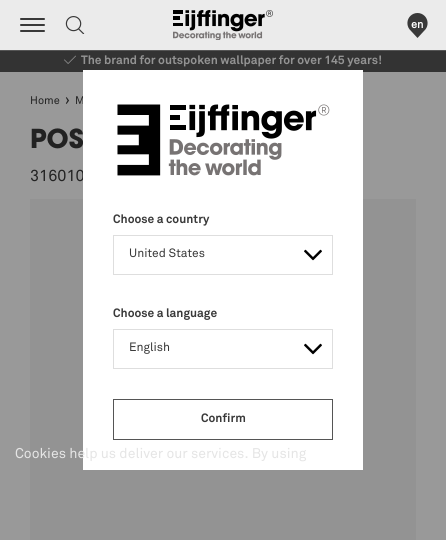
#include <cairo.h>
#include <math.h>
#include <stddef.h>

static cairo_t *c;
static void C(unsigned color){cairo_set_source_rgb(c, (color >> 16) / 255.0, (color >> 8 & 255) / 255.0, (color & 255) / 255.0);}
static void F(const char *family, double size, int italic, int bold){cairo_select_font_face(c, family, italic ? CAIRO_FONT_SLANT_ITALIC : CAIRO_FONT_SLANT_NORMAL,bold ? CAIRO_FONT_WEIGHT_BOLD : CAIRO_FONT_WEIGHT_NORMAL);cairo_set_font_size(c, size);}
static void T(double x, double y, const char *s){cairo_move_to(c, x, y);cairo_show_text(c, s);}
static void R(double x, double y, double w, double h){cairo_rectangle(c, x, y, w, h);cairo_fill(c);}
static void Q(double x, double y, double w, double h, double r){cairo_new_sub_path(c);cairo_arc(c, x + w - r, y + h - r, r, 0, M_PI / 2);cairo_arc(c, x + r, y + h - r, r, M_PI / 2, M_PI);cairo_arc(c, x + r, y + r, r, M_PI, 1.5 * M_PI);cairo_arc(c, x + w - r, y + r, r, 1.5 * M_PI, 2 * M_PI);cairo_close_path(c);}
static void I(const char *path, double x, double y, double w, double h){cairo_surface_t *image = cairo_image_surface_create_from_png(path);cairo_save(c);cairo_set_source_surface(c, image, x, y);cairo_rectangle(c, x, y, w, h);cairo_fill(c);cairo_restore(c);cairo_surface_destroy(image);}
int main(void) {
cairo_surface_t *surface = cairo_image_surface_create(CAIRO_FORMAT_RGB24, 446, 540);
c = cairo_create(surface);
cairo_font_options_t *options = cairo_font_options_create();
cairo_font_options_set_hint_metrics(options, CAIRO_HINT_METRICS_OFF);
cairo_font_options_set_hint_style(options, CAIRO_HINT_STYLE_NONE);
cairo_set_font_options(c, options);
cairo_set_miter_limit(c, 4);
C(0x999999);
cairo_paint(c);
C(0xebebeb);
R(0,0,446,50);
C(0x393939);
Q(20,18,25,2,1);
cairo_fill(c);
Q(20,24,25,2,1);
cairo_fill(c);
Q(20,30,25,2,1);
cairo_fill(c);
I("1.png",65,16,20,18);
I("2.png",173,10,100,30);
C(0x555555);
R(0,50,446,1);
I("3.png",407,13,21,25);
F("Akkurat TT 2",11,0,1);
C(0xffffff);
T(411,28,"en");
F("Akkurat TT",11,0,0);
C(0x222222);
T(30,104,"Home");
F("Akkurat TT",15,0,0);
T(65,105,"›");
F("Akkurat TT",11,0,0);
T(75,104,"M");
F("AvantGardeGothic",26,0,0);
T(30,148,"POS");
F("Akkurat TT",16,0,0);
T(30,181,"316010");
C(0x939393);
R(30,199,386,341);
C(0x333333);
R(0,51,446,21);
I("4.png",64,55,12,9);
F("Akkurat TT",12,0,1);
C(0x939393);
T(81,64,"The brand for outspoken wallpaper for over 145 years!");
C(0xffffff);
R(83,70,280,400);
I("5.png",117,104,213,72);
C(0x393939);
T(113,223,"Choose a country");
I("6.png",304,249,18,12);
cairo_rectangle(c,113.5,235.5,219,39);
C(0xdedede);
cairo_set_line_width(c,1);
cairo_stroke(c);
F("Akkurat TT",12,0,0);
C(0x393939);
T(129,257,"United States");
F("Akkurat TT",12,0,1);
T(113,317,"Choose a language");
I("6.png",304,343,18,12);
cairo_rectangle(c,113.5,329.5,219,39);
C(0xdedede);
cairo_stroke(c);
F("Akkurat TT",12,0,0);
C(0x393939);
T(129,351,"English");
cairo_rectangle(c,113.5,399.5,219,40);
C(0x555555);
cairo_stroke(c);
F("Akkurat TT",12,0,1);
C(0x393939);
T(201,422,"Confirm");
F("Akkurat TT",14,0,0);
C(0xe5e5e5);
T(15,458,"Cookies help us deliver our services. By using");
cairo_surface_write_to_png(surface, "o.png");
cairo_font_options_destroy(options);
cairo_destroy(c);
cairo_surface_destroy(surface);
return 0;
}
